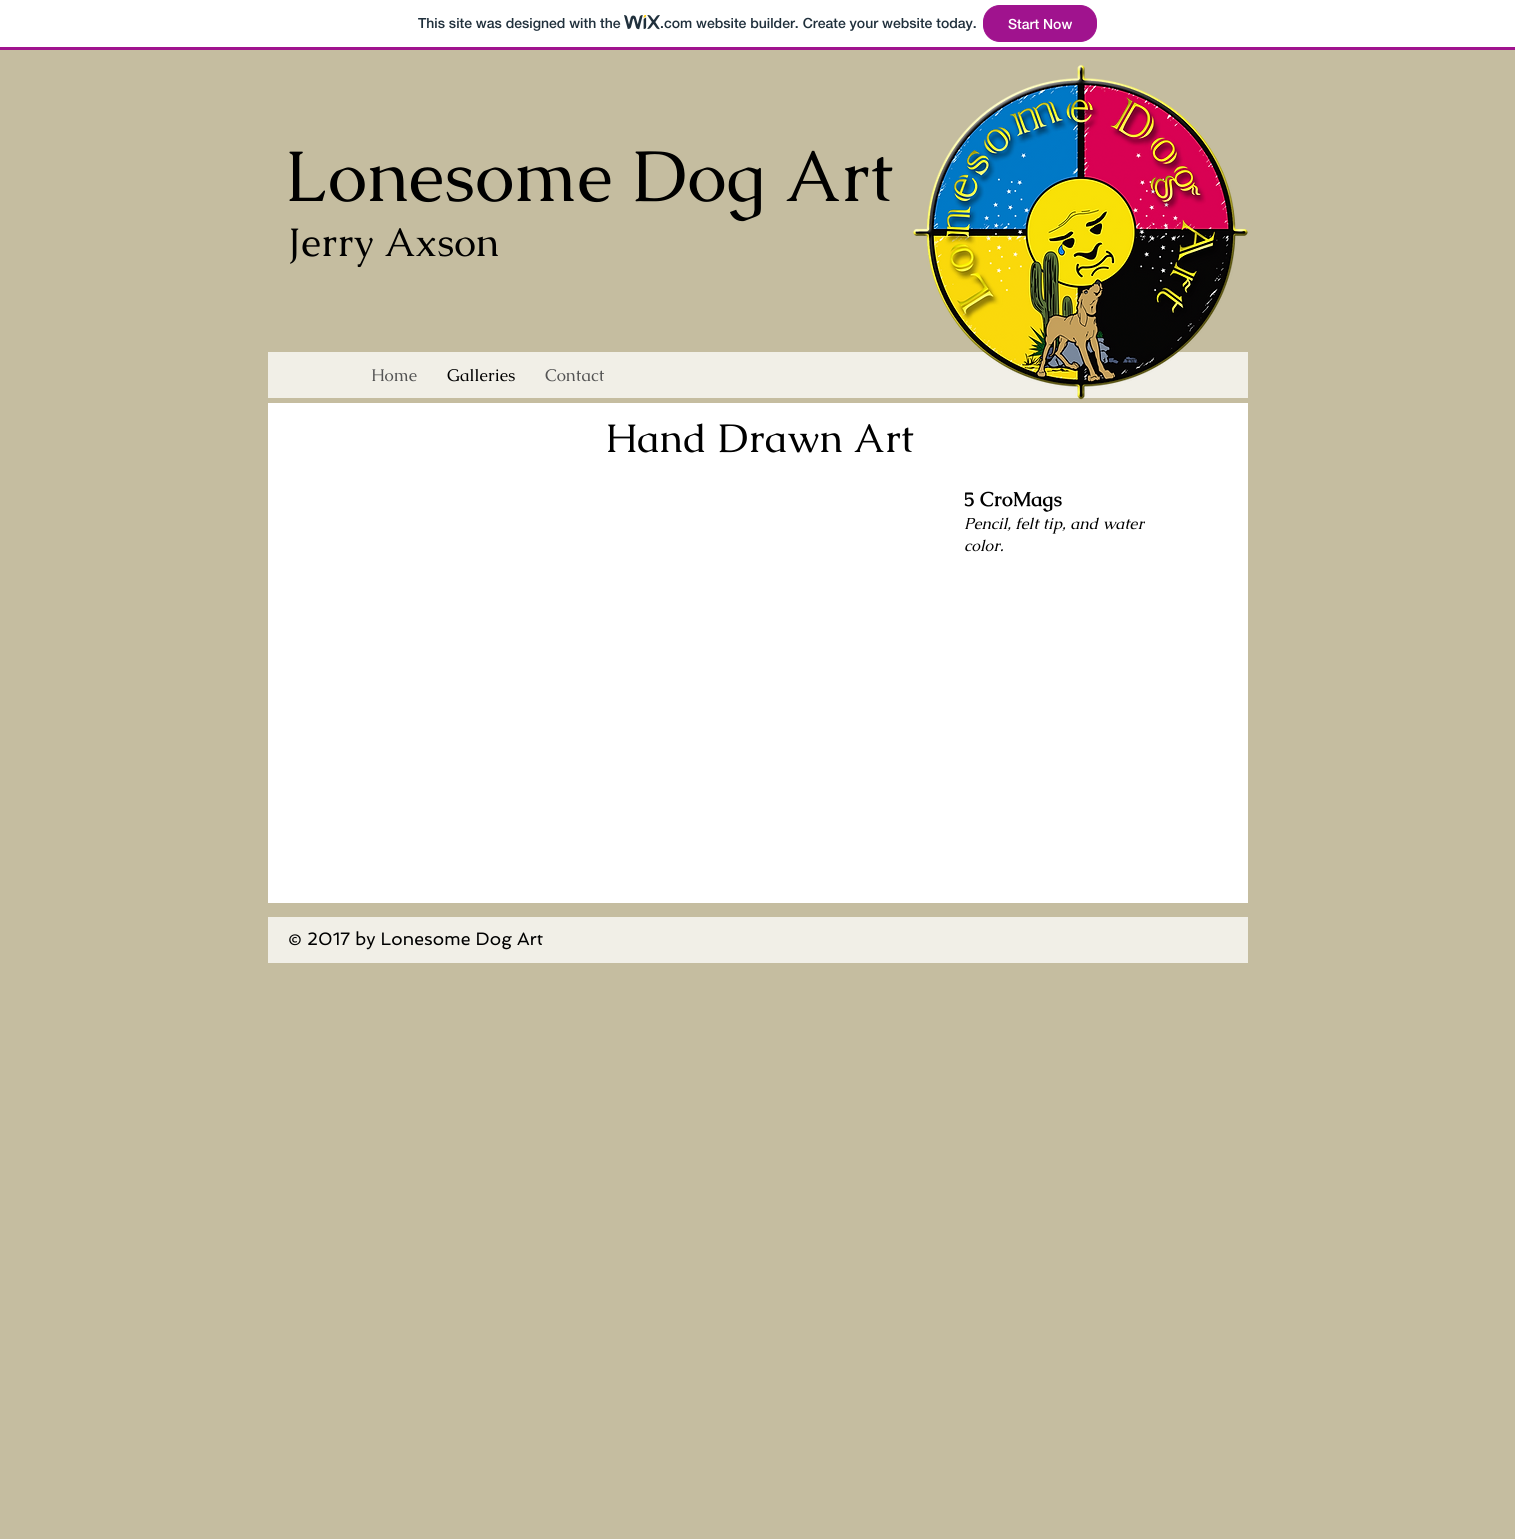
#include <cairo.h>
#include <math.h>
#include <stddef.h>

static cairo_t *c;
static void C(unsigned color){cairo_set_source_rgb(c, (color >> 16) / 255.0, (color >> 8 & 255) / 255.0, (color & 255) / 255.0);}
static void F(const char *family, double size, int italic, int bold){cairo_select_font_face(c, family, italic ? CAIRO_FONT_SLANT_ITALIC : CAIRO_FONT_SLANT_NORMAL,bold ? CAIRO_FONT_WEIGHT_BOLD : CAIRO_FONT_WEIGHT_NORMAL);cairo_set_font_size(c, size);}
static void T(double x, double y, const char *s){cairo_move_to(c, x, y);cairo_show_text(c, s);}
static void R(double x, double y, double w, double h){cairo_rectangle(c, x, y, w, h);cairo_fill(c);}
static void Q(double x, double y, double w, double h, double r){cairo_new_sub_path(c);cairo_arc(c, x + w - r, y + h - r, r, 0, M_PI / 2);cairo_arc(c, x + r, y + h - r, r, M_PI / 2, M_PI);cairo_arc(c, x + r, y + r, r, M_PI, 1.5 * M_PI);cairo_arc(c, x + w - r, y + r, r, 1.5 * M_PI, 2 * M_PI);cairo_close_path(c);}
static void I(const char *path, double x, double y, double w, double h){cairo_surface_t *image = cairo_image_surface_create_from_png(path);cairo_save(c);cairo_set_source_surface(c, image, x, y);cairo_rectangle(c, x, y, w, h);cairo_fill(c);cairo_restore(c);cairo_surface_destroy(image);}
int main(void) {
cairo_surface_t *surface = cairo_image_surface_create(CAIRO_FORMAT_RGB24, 1515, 1539);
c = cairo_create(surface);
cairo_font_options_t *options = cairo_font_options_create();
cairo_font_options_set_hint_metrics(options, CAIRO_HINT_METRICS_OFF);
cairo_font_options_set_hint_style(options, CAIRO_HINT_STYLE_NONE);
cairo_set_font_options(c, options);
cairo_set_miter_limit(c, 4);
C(0xffffff);
cairo_paint(c);
C(0xa0138e);
R(0,47,1515,3);
F("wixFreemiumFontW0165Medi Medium",14,0,0);
C(0x20303c);
T(418,28,"This site was designed with the");
I("1.png",624,15,36,15);
T(660,28,".com website builder. Create your website today.");
C(0xa0138e);
Q(983.5,5.5,113,36,16.5);
cairo_fill_preserve(c);
cairo_set_line_width(c,1);
cairo_stroke(c);
C(0xffffff);
T(1008,29,"Start Now");
C(0xc5bda0);
R(0,50,1515,1489);
F("Caudex",72,0,0);
C(0x000000);
T(284,201,"Lonesome Dog Art");
C(0xf1efe7);
R(268,352,980,46);
I("2.png",913,64,335,336);
F("Caudex",40,0,0);
C(0x000000);
T(288,256,"Jerry Axson");
F("Caudex",17,0,0);
C(0x545454);
T(371,381,"Home");
C(0x000000);
T(447,381,"Galleries");
C(0x545454);
T(545,381,"Contact");
C(0xffffff);
R(268,403,980,500);
F("Caudex",40,0,0);
C(0x000000);
T(605,452,"Hand Drawn Art");
F("Caudex",20,0,1);
T(964,506,"5 CroMags");
F("Caudex",16,1,0);
T(964,529,"Pencil, felt tip, and water");
T(964,551,"color.");
C(0xf1efe7);
R(268,917,980,46);
F("Spinnaker",18,0,0);
C(0x000000);
T(288,945,"© 2017 by Lonesome Dog Art");
cairo_surface_write_to_png(surface, "o.png");
cairo_font_options_destroy(options);
cairo_destroy(c);
cairo_surface_destroy(surface);
return 0;
}
